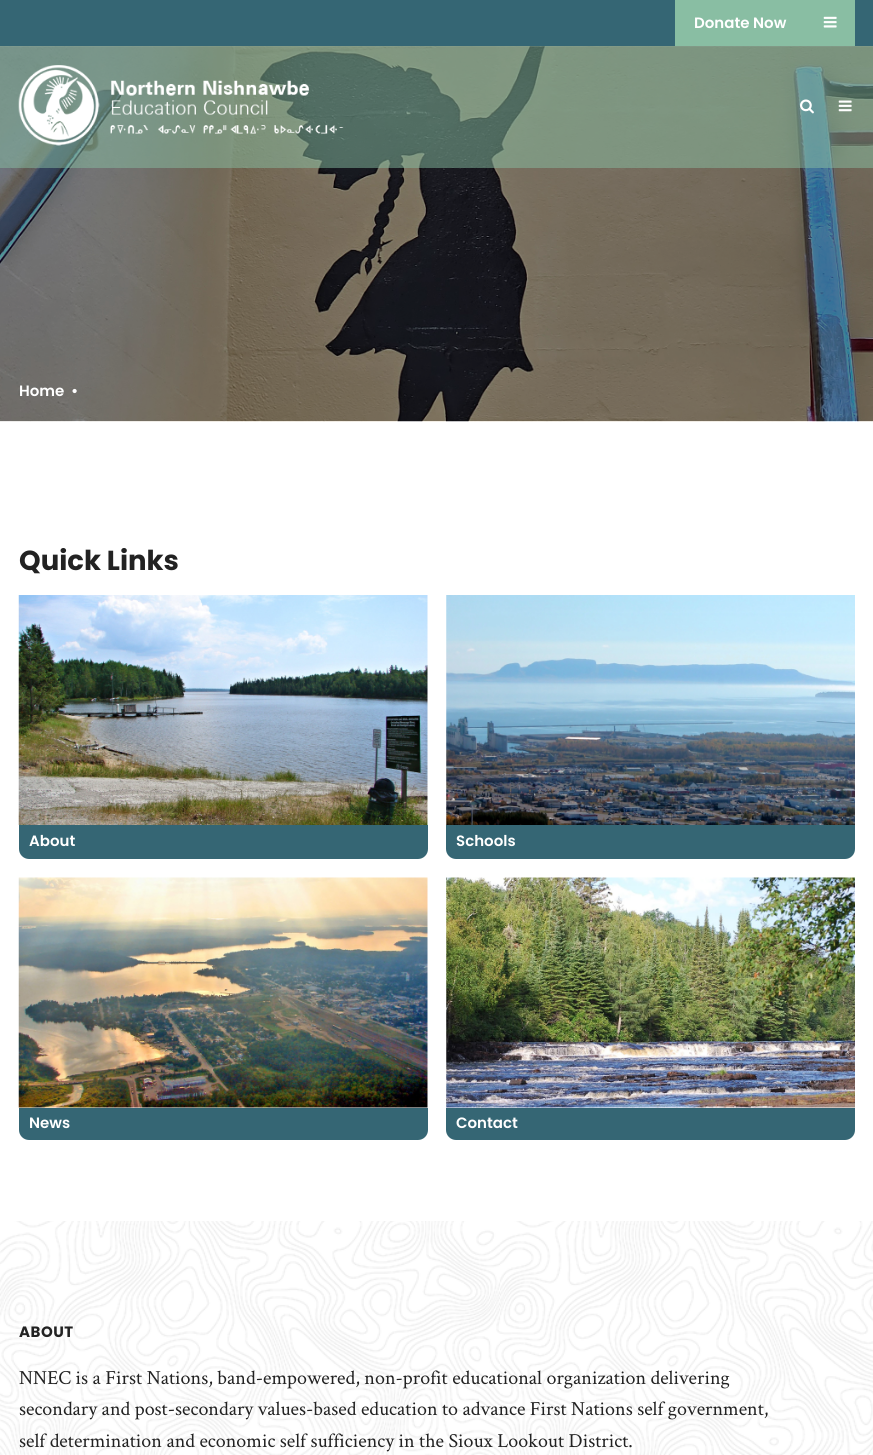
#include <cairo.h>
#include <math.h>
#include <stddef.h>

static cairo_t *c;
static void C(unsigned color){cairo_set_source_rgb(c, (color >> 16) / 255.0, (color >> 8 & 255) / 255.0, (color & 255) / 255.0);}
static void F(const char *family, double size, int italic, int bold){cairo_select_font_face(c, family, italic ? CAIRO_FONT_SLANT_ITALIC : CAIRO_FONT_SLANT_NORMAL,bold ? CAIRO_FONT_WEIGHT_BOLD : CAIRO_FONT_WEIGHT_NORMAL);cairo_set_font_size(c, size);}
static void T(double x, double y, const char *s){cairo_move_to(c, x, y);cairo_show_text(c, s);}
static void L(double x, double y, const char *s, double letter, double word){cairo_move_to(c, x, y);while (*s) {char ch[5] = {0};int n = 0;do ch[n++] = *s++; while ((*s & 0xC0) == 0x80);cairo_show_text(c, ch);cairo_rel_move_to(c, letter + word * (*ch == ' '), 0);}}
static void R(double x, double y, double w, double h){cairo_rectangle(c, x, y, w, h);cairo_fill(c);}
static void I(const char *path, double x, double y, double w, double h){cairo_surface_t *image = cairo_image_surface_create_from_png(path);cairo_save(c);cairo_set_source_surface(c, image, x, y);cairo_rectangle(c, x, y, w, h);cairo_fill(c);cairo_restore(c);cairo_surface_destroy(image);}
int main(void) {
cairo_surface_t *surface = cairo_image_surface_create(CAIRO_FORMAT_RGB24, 873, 1455);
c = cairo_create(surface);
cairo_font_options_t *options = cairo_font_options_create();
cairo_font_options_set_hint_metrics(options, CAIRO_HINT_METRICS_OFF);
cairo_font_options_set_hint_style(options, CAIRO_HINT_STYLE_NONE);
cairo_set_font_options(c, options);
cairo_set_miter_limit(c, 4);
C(0xffffff);
cairo_paint(c);
I("1.png",0,46,873,1409);
C(0x356674);
R(0,0,873,46);
C(0x89bea3);
R(675,0,180,46);
F("Poppins SemiBold",15,0,0);
C(0xffffff);
T(694,28,"Donate Now");
I("2.png",823,16,14,12);
R(0,421,873,800);
I("6.png",0,46,873,376);
cairo_set_source_rgba(c,0,0,0,0.4);
R(0,46,873,375);
cairo_set_source_rgba(c,0.537,0.745,0.639,0.5);
R(0,46,873,122);
I("3.png",18,65,326,81);
I("4.png",800,99,14,15);
I("5.png",838,100,14,12);
C(0xffffff);
T(19,396,"Home");
T(71,396,"•");
F("Poppins",27.5,0,1);
C(0x222222);
T(19,570,"Quick Links");
I("7.png",18,595,410,230);
C(0x356674);
cairo_new_path(c);
cairo_move_to(c,19,825);
cairo_line_to(c,428,825);
cairo_line_to(c,428,849);
cairo_curve_to(c,428,854.5,423.5,859,418,859);
cairo_line_to(c,29,859);
cairo_curve_to(c,23.5,859,19,854.5,19,849);
cairo_close_path(c);
cairo_fill(c);
F("Poppins SemiBold",15,0,0);
C(0xffffff);
T(29,846,"About");
I("8.png",446,595,409,230);
C(0x356674);
cairo_new_path(c);
cairo_move_to(c,446,825);
cairo_line_to(c,855,825);
cairo_line_to(c,855,849);
cairo_curve_to(c,855,854.5,850.5,859,845,859);
cairo_line_to(c,456,859);
cairo_curve_to(c,450.5,859,446,854.5,446,849);
cairo_close_path(c);
cairo_fill(c);
C(0xffffff);
T(456,846,"Schools");
I("9.png",18,877,410,231);
C(0x356674);
cairo_new_path(c);
cairo_move_to(c,19,1108);
cairo_line_to(c,428,1108);
cairo_line_to(c,428,1130);
cairo_curve_to(c,428,1135.5,423.5,1140,418,1140);
cairo_line_to(c,29,1140);
cairo_curve_to(c,23.5,1140,19,1135.5,19,1130);
cairo_close_path(c);
cairo_fill(c);
C(0xffffff);
T(29,1128,"News");
I("10.png",446,877,409,231);
C(0x356674);
cairo_new_path(c);
cairo_move_to(c,446,1108);
cairo_line_to(c,855,1108);
cairo_line_to(c,855,1130);
cairo_curve_to(c,855,1135.5,850.5,1140,845,1140);
cairo_line_to(c,456,1140);
cairo_curve_to(c,450.5,1140,446,1135.5,446,1130);
cairo_close_path(c);
cairo_fill(c);
C(0xffffff);
T(456,1128,"Contact");
F("Poppins",15,0,1);
C(0x222222);
L(19,1337,"ABOUT",.5,0);
F("Crimson Text",20,0,0);
T(19,1384,"NNEC is a First Nations, band-empowered, non-profit educational organization delivering");
T(19,1415,"secondary and post-secondary values-based education to advance First Nations self government,");
T(19,1447,"self determination and economic self sufficiency in the Sioux Lookout District.");
cairo_surface_write_to_png(surface, "o.png");
cairo_font_options_destroy(options);
cairo_destroy(c);
cairo_surface_destroy(surface);
return 0;
}
